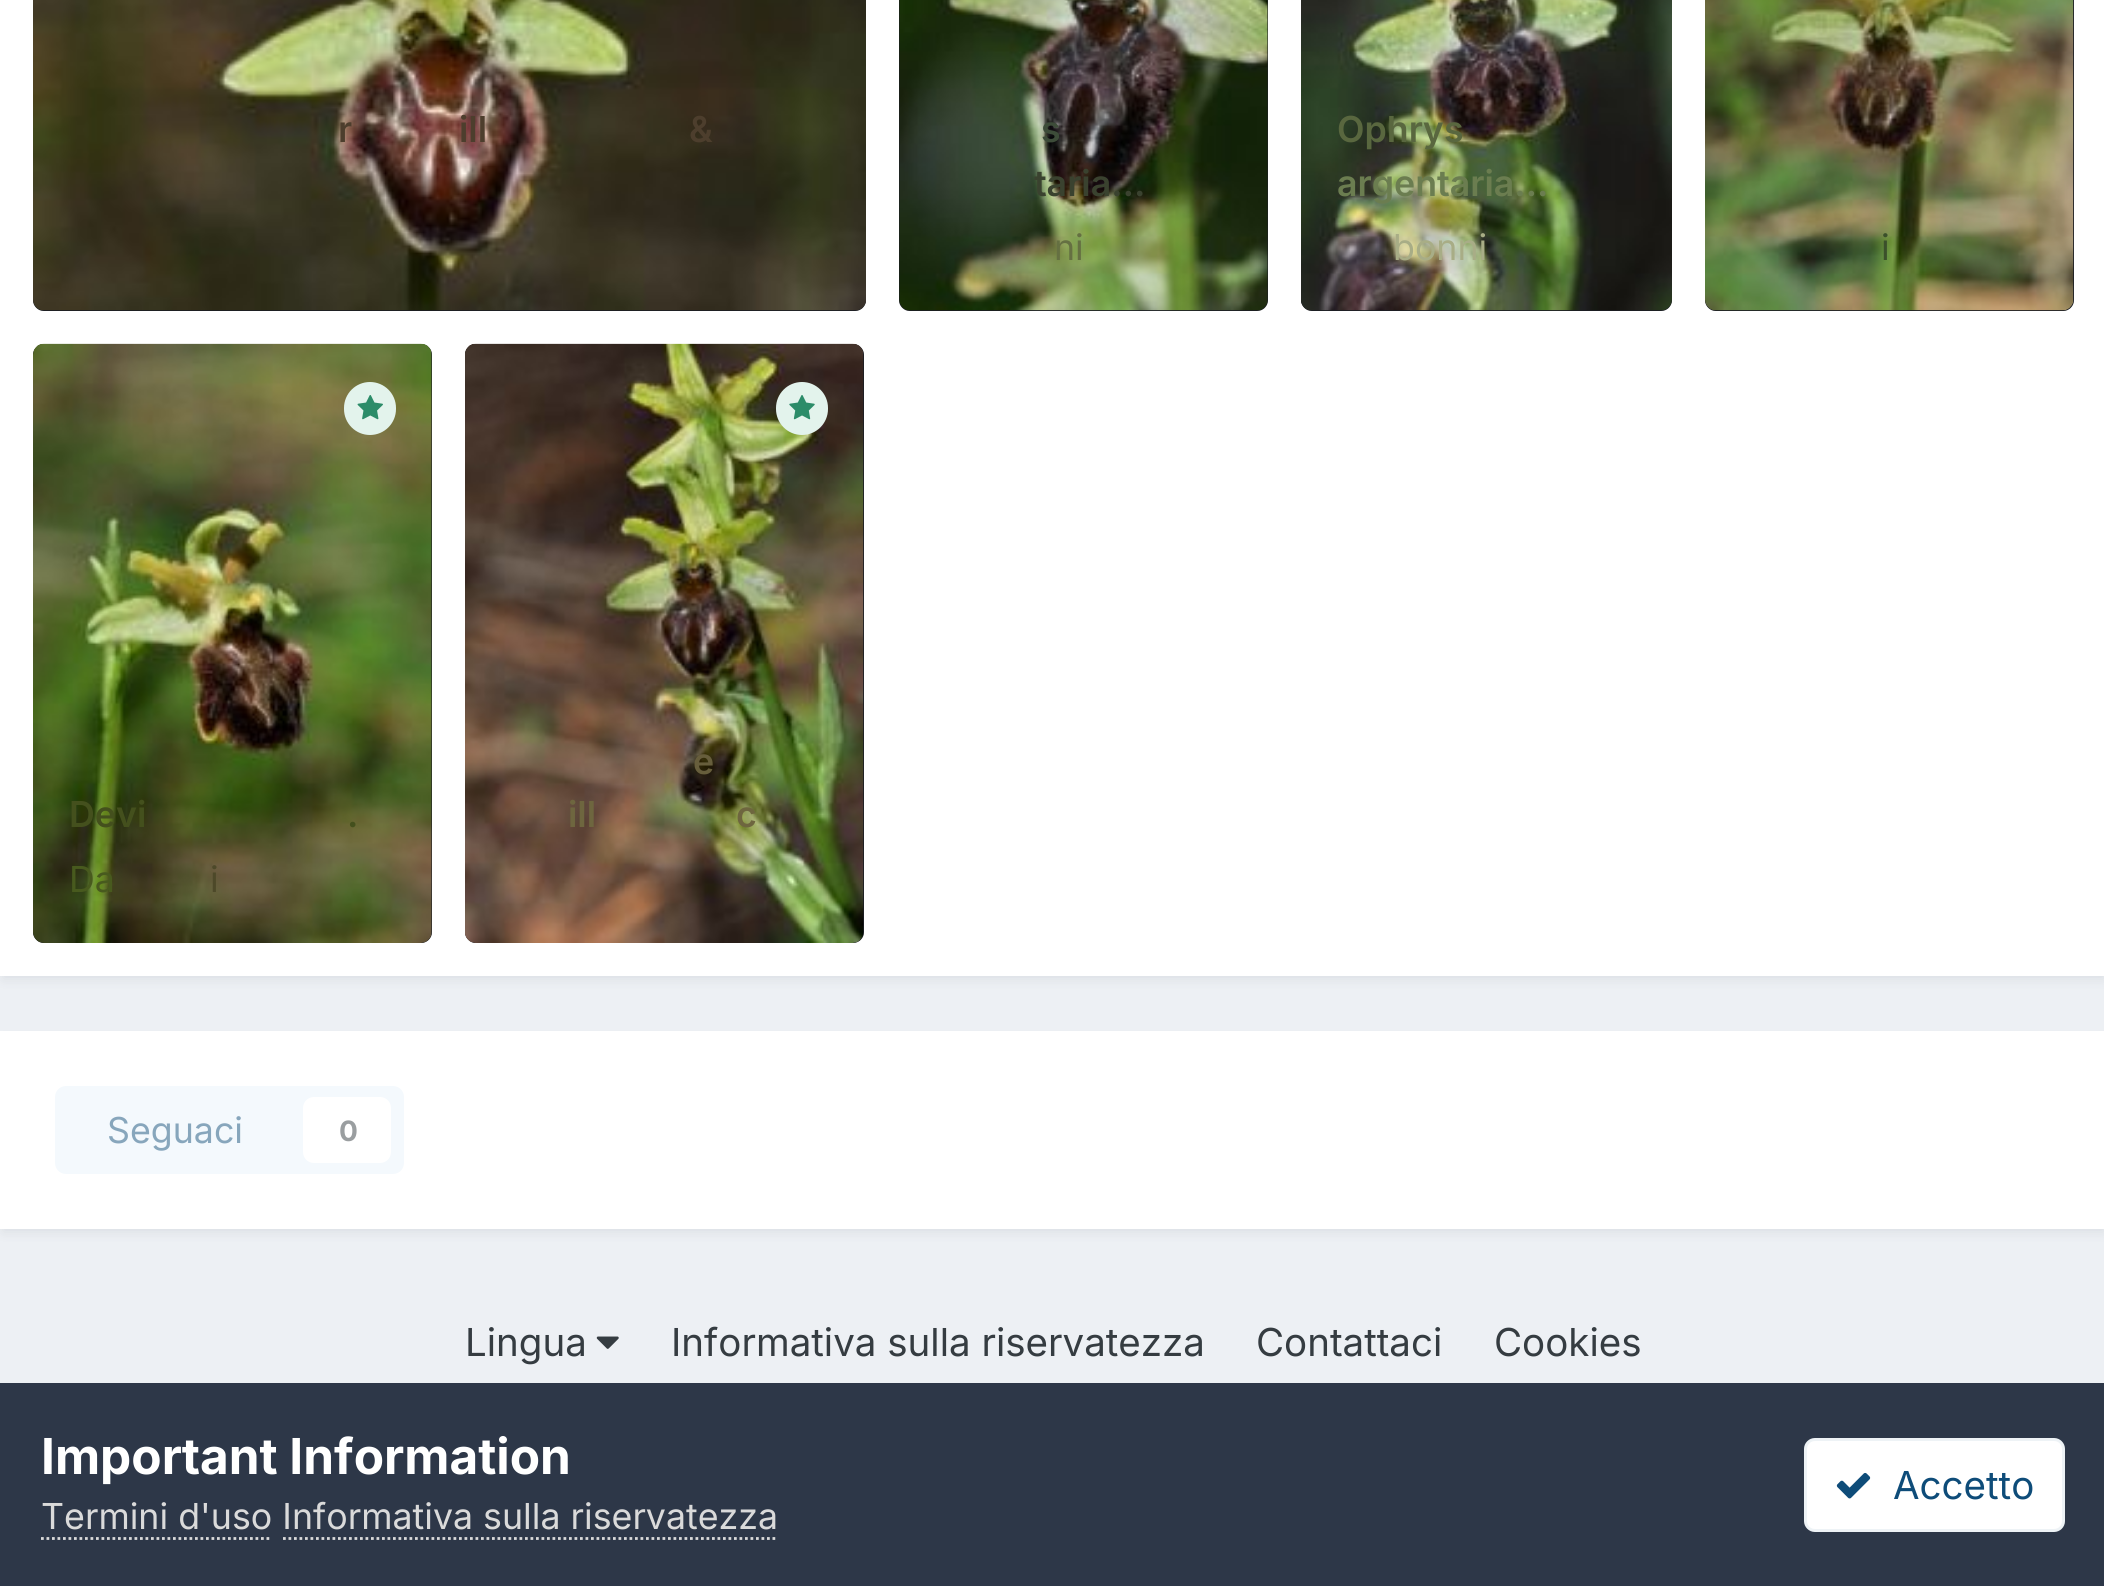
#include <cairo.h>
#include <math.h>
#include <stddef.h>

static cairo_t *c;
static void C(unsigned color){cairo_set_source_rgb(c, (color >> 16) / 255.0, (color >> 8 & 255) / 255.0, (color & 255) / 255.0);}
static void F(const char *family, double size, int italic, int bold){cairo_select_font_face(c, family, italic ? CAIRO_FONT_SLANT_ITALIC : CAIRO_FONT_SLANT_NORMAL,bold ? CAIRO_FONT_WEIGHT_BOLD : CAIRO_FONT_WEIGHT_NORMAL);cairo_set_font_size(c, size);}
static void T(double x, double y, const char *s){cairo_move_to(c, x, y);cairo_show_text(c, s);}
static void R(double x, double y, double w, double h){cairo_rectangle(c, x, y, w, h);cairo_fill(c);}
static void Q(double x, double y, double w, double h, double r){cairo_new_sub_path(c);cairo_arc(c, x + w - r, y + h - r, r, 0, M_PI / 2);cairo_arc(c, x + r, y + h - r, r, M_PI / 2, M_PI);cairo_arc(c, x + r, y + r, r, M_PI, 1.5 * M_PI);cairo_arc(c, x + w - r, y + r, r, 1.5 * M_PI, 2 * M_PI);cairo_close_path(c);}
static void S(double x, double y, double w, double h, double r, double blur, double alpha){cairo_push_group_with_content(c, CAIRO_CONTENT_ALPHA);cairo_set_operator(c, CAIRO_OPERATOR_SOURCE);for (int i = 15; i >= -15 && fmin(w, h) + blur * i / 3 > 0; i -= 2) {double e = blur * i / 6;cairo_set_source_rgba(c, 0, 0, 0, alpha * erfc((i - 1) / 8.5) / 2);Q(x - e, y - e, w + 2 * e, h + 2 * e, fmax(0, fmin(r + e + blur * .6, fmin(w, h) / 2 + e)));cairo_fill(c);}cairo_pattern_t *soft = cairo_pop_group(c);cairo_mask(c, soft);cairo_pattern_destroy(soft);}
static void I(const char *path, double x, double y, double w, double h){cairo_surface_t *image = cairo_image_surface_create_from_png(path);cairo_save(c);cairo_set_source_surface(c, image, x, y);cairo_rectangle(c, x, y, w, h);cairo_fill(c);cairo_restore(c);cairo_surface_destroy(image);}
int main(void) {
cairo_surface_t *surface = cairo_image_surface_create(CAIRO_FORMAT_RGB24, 2104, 1586);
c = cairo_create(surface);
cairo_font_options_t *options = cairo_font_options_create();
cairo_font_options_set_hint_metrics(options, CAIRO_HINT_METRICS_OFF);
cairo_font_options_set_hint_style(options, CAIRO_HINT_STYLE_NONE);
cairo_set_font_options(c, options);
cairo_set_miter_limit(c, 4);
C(0xedf0f4);
cairo_paint(c);
C(0x2d3748);
S(3,-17,2101,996,0,5.5,.1);
C(0xffffff);
R(0,0,2104,976);
C(0x141414);
Q(33,-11,833,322,11);
cairo_fill(c);
cairo_set_source_rgba(c,0.176,0.216,0.282,0.3);
Q(33,-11,833,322,11);
cairo_fill(c);
I("1.png",33,0,833,311);
F("Inter SemiBold",35.75,0,0);
C(0x4d3e2d);
T(338,142,"r");
T(459,142,"ill");
T(689,142,"&");
C(0x141414);
Q(899,-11,369,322,11);
cairo_fill(c);
cairo_set_source_rgba(c,0.176,0.216,0.282,0.3);
Q(899,-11,369,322,11);
cairo_fill(c);
I("2.png",899,0,369,311);
C(0x3d4c39);
T(1041,142,"s");
C(0x3a422f);
T(1034,196,"taria…");
F("Inter",35.75,0,0);
C(0x657042);
T(1054,260,"ni");
C(0x141414);
Q(1301,-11,371,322,11);
cairo_fill(c);
cairo_set_source_rgba(c,0.176,0.216,0.282,0.3);
Q(1301,-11,371,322,11);
cairo_fill(c);
I("3.png",1301,0,371,311);
F("Inter SemiBold",35.75,0,0);
C(0x59673f);
T(1337,142,"Ophrys");
C(0x6b7d50);
T(1337,196,"argentaria…");
F("Inter",35.75,0,0);
C(0xa8ad86);
T(1393,260,"bonni");
C(0x141414);
Q(1705,-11,369,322,11);
cairo_fill(c);
cairo_set_source_rgba(c,0.176,0.216,0.282,0.3);
Q(1705,-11,369,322,11);
cairo_fill(c);
I("4.png",1705,0,369,311);
C(0x3b502b);
T(1881,260,"i");
C(0x141414);
Q(465,344,399,599,11);
cairo_fill(c);
cairo_set_source_rgba(c,0.176,0.216,0.282,0.3);
Q(465,344,399,599,11);
cairo_fill(c);
I("5.png",465,343,399,600);
C(0xe3f3ec);
Q(776,382,52,53,26);
cairo_fill(c);
I("6.png",789,395,26,25);
F("Inter SemiBold",35.75,0,0);
C(0x675e3c);
T(693,774,"e");
C(0x6e663f);
T(568,827,"ill");
T(736,827,"c");
C(0x141414);
Q(33,344,399,599,11);
cairo_fill(c);
cairo_set_source_rgba(c,0.176,0.216,0.282,0.3);
Q(33,344,399,599,11);
cairo_fill(c);
I("7.png",33,343,399,600);
C(0xe3f3ec);
Q(344,382,52,53,26);
cairo_fill(c);
I("8.png",357,395,26,25);
C(0x44501d);
T(69,827,"Devi");
T(347,827,".");
F("Inter",35.75,0,0);
C(0x485a1e);
T(69,892,"Da");
C(0x4d4929);
T(210,892,"i");
C(0x2d3748);
S(3,1040,2101,192,0,5.5,.1);
C(0xffffff);
R(0,1031,2104,198);
C(0xf4f9fd);
Q(55,1086,349,88,11);
cairo_fill(c);
C(0x87a6bc);
T(107,1143,"Seguaci");
C(0xffffff);
Q(303,1097,88,66,11);
cairo_fill(c);
F("Inter",28,0,1);
C(0x9a9ea0);
T(339,1141,"0");
F("Inter",38.5,0,0);
C(0x353c41);
T(465,1356,"Lingua");
I("9.png",596,1336,23,13);
T(671,1356,"Informativa sulla riservatezza");
T(1256,1356,"Contattaci");
T(1494,1356,"Cookies");
C(0x2d3748);
R(0,1383,2104,203);
F("Inter",49.5,0,1);
C(0xffffff);
T(41,1474,"Important Information");
F("Inter",35.75,0,0);
C(0xdadada);
T(41,1529,"Termini d'uso Informativa sulla riservatezza");
cairo_new_path(c);
cairo_move_to(c,41,1538.5);
cairo_line_to(c,272,1538.5);
cairo_set_line_width(c,2.8);
cairo_set_dash(c,(double[]){2.75,2.75},2,0);
cairo_stroke(c);
cairo_new_path(c);
cairo_move_to(c,283,1538.5);
cairo_line_to(c,778,1538.5);
cairo_stroke(c);
C(0xffffff);
Q(1804,1438,261,94,11);
cairo_fill(c);
Q(1805.5,1439.5,258,91,9.5);
cairo_set_source_rgba(c,0.055,0.298,0.475,0.07);
cairo_set_line_width(c,3);
cairo_set_dash(c,NULL,0,0);
cairo_stroke(c);
I("10.png",1836,1472,35,27);
F("Inter",38.5,0,0);
C(0x0e4c79);
T(1893,1499,"Accetto");
cairo_surface_write_to_png(surface, "o.png");
cairo_font_options_destroy(options);
cairo_destroy(c);
cairo_surface_destroy(surface);
return 0;
}
